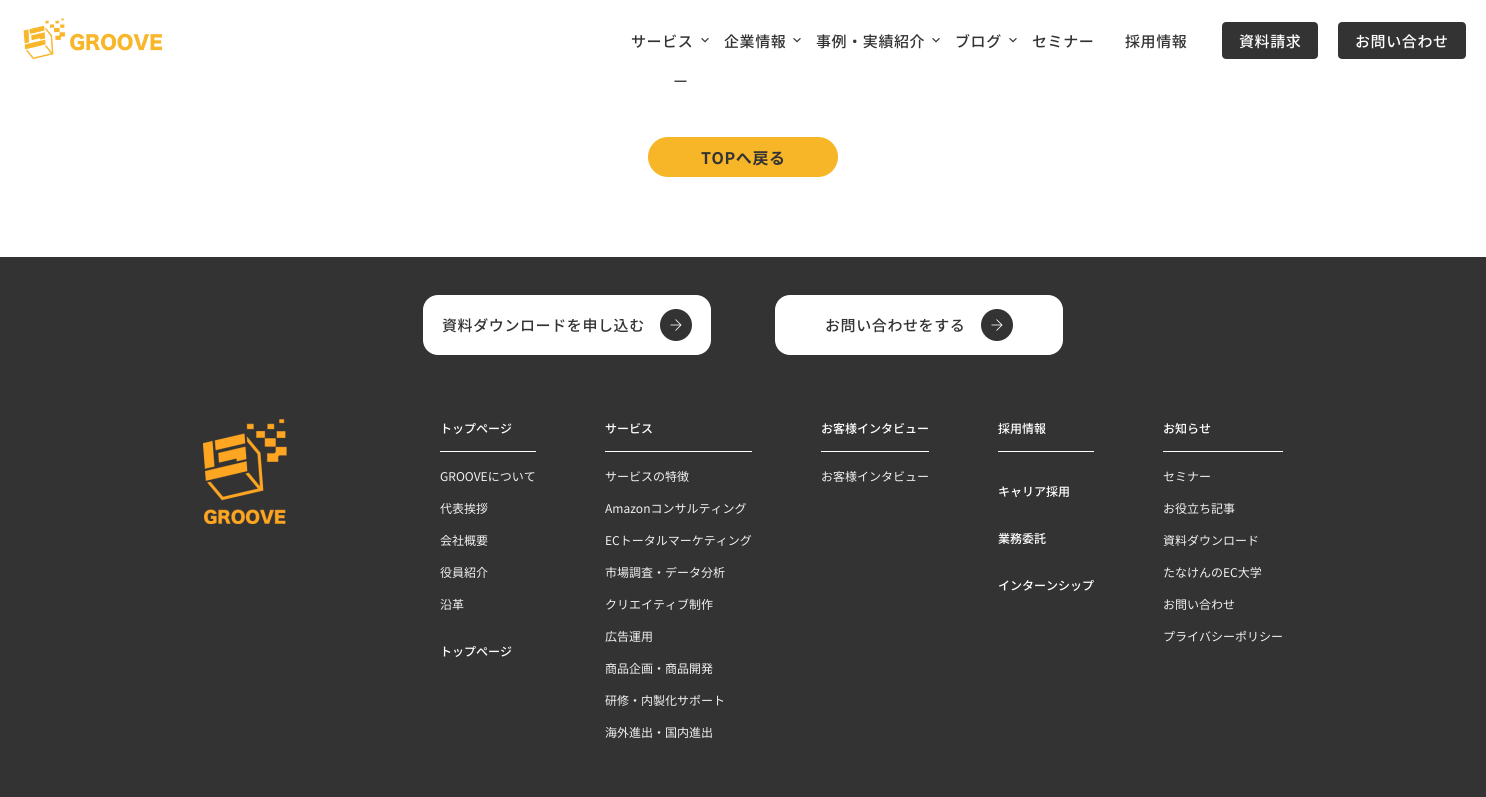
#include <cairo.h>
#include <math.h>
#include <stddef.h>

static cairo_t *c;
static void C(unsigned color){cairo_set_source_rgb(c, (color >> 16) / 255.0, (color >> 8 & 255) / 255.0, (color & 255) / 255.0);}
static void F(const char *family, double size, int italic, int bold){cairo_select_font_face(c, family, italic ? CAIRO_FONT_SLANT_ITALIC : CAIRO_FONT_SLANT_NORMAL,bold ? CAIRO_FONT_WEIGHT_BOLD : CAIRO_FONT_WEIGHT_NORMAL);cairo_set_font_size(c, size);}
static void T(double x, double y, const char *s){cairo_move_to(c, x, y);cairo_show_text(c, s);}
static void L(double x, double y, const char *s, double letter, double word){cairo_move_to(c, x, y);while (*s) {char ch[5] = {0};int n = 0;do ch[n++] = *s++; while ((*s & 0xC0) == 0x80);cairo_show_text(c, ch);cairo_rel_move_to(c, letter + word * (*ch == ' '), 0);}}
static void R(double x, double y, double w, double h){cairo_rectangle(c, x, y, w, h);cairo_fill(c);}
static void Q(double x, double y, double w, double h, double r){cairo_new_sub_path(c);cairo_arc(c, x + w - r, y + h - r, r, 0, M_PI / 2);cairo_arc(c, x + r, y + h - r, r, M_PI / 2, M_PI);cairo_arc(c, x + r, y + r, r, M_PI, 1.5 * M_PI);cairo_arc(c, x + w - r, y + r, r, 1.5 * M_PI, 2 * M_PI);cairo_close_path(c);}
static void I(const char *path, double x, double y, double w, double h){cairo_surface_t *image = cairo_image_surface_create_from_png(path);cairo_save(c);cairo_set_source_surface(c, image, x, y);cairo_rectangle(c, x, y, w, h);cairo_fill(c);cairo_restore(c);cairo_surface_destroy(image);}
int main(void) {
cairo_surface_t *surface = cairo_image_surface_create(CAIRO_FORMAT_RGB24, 1486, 797);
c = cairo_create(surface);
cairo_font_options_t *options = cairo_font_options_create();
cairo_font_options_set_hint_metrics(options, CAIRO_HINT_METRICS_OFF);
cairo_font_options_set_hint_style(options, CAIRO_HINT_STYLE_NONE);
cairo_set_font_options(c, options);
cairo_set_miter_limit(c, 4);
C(0xffffff);
cairo_paint(c);
I("1.png",23,18,139,42);
I("2.png",701,38,8,5);
F("Noto Sans JP Medium",15,0,0);
C(0x333333);
L(631,47,"サービス",.6,0);
I("2.png",793,38,8,5);
L(724,47,"企業情報",.6,0);
I("2.png",932,38,8,5);
L(816,47,"事例・実績紹介",.6,0);
I("2.png",1009,38,8,5);
L(955,47,"ブログ",.6,0);
L(1032,47,"セミナー",.6,0);
L(1125,47,"採用情報",.6,0);
Q(1223,23,94,35,3);
cairo_fill_preserve(c);
cairo_stroke(c);
C(0xffffff);
L(1239,47,"資料請求",.6,0);
C(0x333333);
Q(1339,23,126,35,3);
cairo_fill_preserve(c);
cairo_stroke(c);
C(0xffffff);
L(1355,47,"お問い合わせ",.6,0);
F("Noto Sans JP",15,0,0);
C(0x333333);
L(673,87,"ー",.6,0);
C(0xf7b528);
Q(648,137,190,40,20);
cairo_fill(c);
F("Noto Sans JP",16,0,1);
C(0x333333);
L(701,164,"TOPへ戻る",.6,0);
R(0,257,1486,540);
C(0xffffff);
Q(423,295,288,60,15);
cairo_fill(c);
C(0x333333);
cairo_arc(c,676,325,16,0,2 * M_PI);
cairo_fill(c);
cairo_new_path(c);
cairo_move_to(c,675.5,319.5);
cairo_line_to(c,681,325);
cairo_line_to(c,675.5,330.5);
cairo_move_to(c,681,325);
cairo_line_to(c,670.5,325);
C(0xffffff);
cairo_set_line_width(c,.8);
cairo_stroke(c);
F("Noto Sans JP Medium",15,0,0);
C(0x333333);
L(442,331,"資料ダウンロードを申し込む",.6,0);
C(0xffffff);
Q(775,295,288,60,15);
cairo_fill(c);
C(0x333333);
cairo_arc(c,997,325,16,0,2 * M_PI);
cairo_fill(c);
cairo_new_path(c);
cairo_move_to(c,996.5,319.5);
cairo_line_to(c,1002,325);
cairo_line_to(c,996.5,330.5);
cairo_move_to(c,1002,325);
cairo_line_to(c,991.5,325);
C(0xffffff);
cairo_stroke(c);
C(0x333333);
L(825,331,"お問い合わせをする",.6,0);
I("3.png",203,419,84,105);
C(0xffffff);
R(440,451,96,1);
F("Noto Sans JP Medium",12,0,0);
T(440,433,"トップページ");
F("Noto Sans JP",12,0,0);
C(0xf0f0f0);
T(440,481,"GROOVEについて");
T(440,513,"代表挨拶");
T(440,545,"会社概要");
T(440,577,"役員紹介");
T(440,609,"沿革");
F("Noto Sans JP Medium",12,0,0);
C(0xffffff);
T(440,656,"トップページ");
R(605,451,147,1);
T(605,433,"サービス");
F("Noto Sans JP",12,0,0);
C(0xf0f0f0);
T(605,481,"サービスの特徴");
T(605,513,"Amazonコンサルティング");
T(605,545,"ECトータルマーケティング");
T(605,577,"市場調査・データ分析");
T(605,609,"クリエイティブ制作");
T(605,641,"広告運用");
T(605,673,"商品企画・商品開発");
T(605,705,"研修・内製化サポート");
T(605,737,"海外進出・国内進出");
C(0xffffff);
R(821,451,108,1);
F("Noto Sans JP Medium",12,0,0);
T(821,433,"お客様インタビュー");
F("Noto Sans JP",12,0,0);
C(0xf0f0f0);
T(821,481,"お客様インタビュー");
C(0xffffff);
R(998,451,96,1);
F("Noto Sans JP Medium",12,0,0);
T(998,433,"採用情報");
T(998,496,"キャリア採用");
T(998,543,"業務委託");
T(998,590,"インターンシップ");
R(1163,451,120,1);
T(1163,433,"お知らせ");
F("Noto Sans JP",12,0,0);
C(0xf0f0f0);
T(1163,481,"セミナー");
T(1163,513,"お役立ち記事");
T(1163,545,"資料ダウンロード");
T(1163,577,"たなけんのEC大学");
T(1163,609,"お問い合わせ");
T(1163,641,"プライバシーポリシー");
cairo_surface_write_to_png(surface, "o.png");
cairo_font_options_destroy(options);
cairo_destroy(c);
cairo_surface_destroy(surface);
return 0;
}
